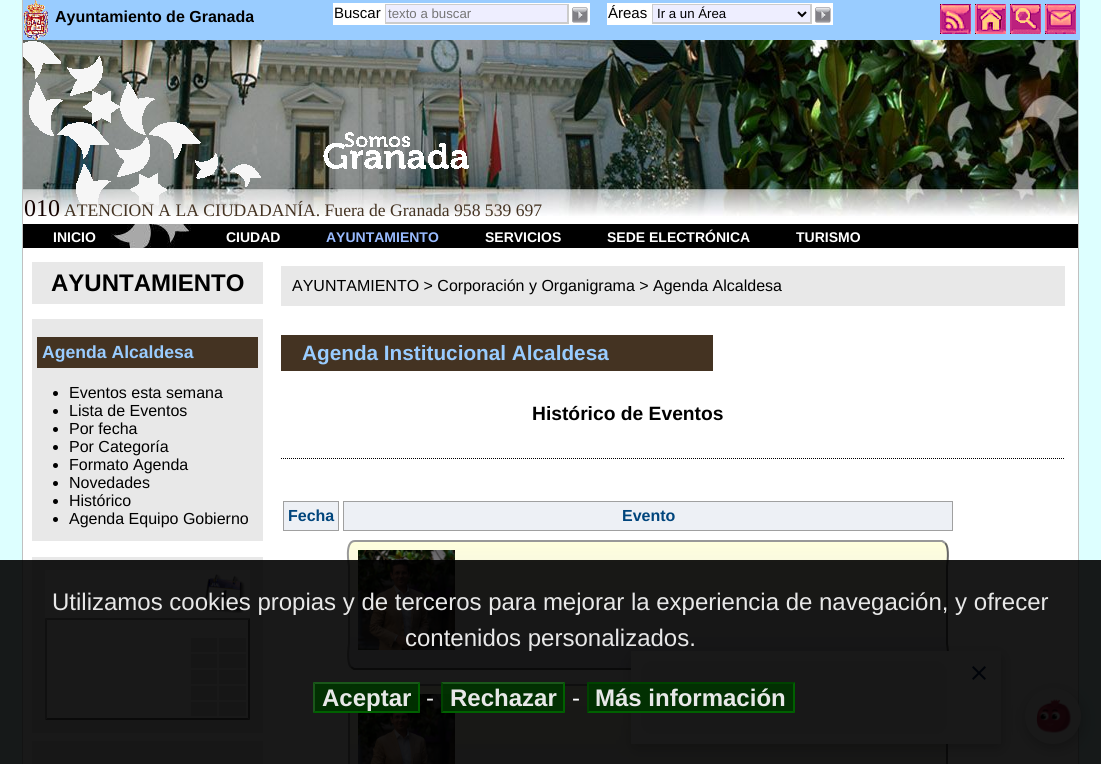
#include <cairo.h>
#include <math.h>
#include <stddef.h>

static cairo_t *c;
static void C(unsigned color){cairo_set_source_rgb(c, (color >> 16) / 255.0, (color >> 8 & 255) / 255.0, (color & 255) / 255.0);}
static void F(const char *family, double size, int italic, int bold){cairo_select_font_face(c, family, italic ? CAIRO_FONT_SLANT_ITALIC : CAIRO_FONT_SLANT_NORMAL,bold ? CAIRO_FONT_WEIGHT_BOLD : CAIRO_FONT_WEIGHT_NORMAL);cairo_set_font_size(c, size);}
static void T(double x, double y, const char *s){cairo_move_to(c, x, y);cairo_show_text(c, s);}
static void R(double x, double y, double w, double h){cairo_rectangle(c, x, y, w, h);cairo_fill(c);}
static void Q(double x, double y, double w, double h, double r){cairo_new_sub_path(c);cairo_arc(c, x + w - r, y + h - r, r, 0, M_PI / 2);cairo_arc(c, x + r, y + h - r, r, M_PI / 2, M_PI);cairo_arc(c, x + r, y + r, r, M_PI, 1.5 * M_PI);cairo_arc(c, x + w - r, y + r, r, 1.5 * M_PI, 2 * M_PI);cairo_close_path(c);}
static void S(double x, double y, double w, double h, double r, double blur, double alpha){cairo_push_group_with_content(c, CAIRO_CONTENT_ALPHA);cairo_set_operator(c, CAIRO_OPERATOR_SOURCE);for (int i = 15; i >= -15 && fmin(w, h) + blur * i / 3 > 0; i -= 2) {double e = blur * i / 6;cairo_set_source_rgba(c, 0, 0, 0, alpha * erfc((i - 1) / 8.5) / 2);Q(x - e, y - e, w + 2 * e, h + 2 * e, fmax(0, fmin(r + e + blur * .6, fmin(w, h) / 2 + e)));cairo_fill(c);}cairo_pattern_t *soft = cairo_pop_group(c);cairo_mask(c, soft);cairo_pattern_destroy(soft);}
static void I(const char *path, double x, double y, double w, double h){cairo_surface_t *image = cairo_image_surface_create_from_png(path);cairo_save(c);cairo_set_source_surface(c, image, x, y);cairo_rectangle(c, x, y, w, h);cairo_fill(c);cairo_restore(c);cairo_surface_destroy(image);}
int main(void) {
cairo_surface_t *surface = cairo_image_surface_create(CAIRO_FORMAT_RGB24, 1101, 764);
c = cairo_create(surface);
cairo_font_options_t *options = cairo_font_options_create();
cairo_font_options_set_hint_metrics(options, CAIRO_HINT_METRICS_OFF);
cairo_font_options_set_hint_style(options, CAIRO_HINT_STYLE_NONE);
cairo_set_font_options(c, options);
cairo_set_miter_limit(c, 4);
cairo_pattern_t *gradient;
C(0xddffff);
cairo_paint(c);
C(0xffffff);
R(23,218,1055,546);
cairo_rectangle(c,22.5,.5,1056,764);
C(0xc0c0c0);
cairo_set_line_width(c,1);
cairo_stroke(c);
C(0x99ccff);
R(23,0,1057,40);
I("1.png",23,0,25,40);
F("Liberation Sans",16,0,1);
C(0x000000);
T(55,22,"Ayuntamiento de Granada");
C(0xffffff);
R(333,3,257,22);
F("Liberation Sans",15,0,0);
C(0x000000);
T(334,18,"Buscar");
C(0xeeeeff);
R(386,5,181,17);
C(0xcccccc);
R(385,4,184,1);
R(567,4,2,20);
R(385,22,184,2);
R(385,4,1,20);
F("Liberation Sans",13.25,0,0);
C(0x757575);
T(388,18,"texto a buscar");
I("2.png",572,7,16,16);
C(0xffffff);
R(607,3,226,22);
F("Liberation Sans",15,0,0);
C(0x000000);
T(608,18,"Áreas");
C(0xeeeeff);
R(653,5,157,17);
C(0xcccccc);
R(652,4,160,1);
R(810,4,2,20);
R(652,22,160,2);
R(652,4,1,20);
cairo_new_path(c);
cairo_move_to(c,798,12);
cairo_line_to(c,802,16);
cairo_line_to(c,806,12);
C(0x000000);
cairo_set_line_width(c,2);
cairo_stroke(c);
F("Liberation Sans",13.25,0,0);
T(657,18,"Ir a un Área");
I("2.png",815,7,16,16);
I("3.png",940,4,31,30);
I("4.png",975,4,31,30);
I("5.png",1010,4,31,30);
I("6.png",1045,4,31,30);
I("7.png",23,40,1055,178);
I("8.png",23,41,238,176);
I("9.png",323,132,146,37);
F("Liberation Serif",24,0,0);
C(0x140200);
T(24,216,"010");
F("Liberation Serif",17.6,0,0);
C(0x443322);
T(64,216,"ATENCION A LA CIUDADANÍA. Fuera de Granada 958 539 697");
C(0x000000);
R(23,224,1055,24);
I("10.png",111,224,80,24);
F("Liberation Sans",14,0,1);
C(0xffffff);
T(53,242,"INICIO");
T(226,242,"CIUDAD");
C(0x99bbff);
T(326,242,"AYUNTAMIENTO");
C(0xffffff);
T(485,242,"SERVICIOS");
T(607,242,"SEDE ELECTRÓNICA");
T(796,242,"TURISMO");
C(0xe8e8e8);
R(32,262,231,42);
F("Liberation Sans",24,0,1);
C(0x000000);
T(51,291,"AYUNTAMIENTO");
C(0xe8e8e8);
R(32,319,231,222);
C(0x443322);
R(37,337,221,31);
F("Liberation Sans",17.6,0,1);
C(0x99ccff);
T(42,358,"Agenda Alcaldesa");
C(0x000000);
cairo_new_path(c);
cairo_arc(c,55.5,393.5,2.5,0,2 * M_PI);
cairo_fill(c);
F("Liberation Sans",16,0,0);
T(69,398,"Eventos esta semana");
cairo_new_path(c);
cairo_arc(c,55.5,411.5,2.5,0,2 * M_PI);
cairo_fill(c);
T(69,416,"Lista de Eventos");
cairo_new_path(c);
cairo_arc(c,55.5,429.5,2.5,0,2 * M_PI);
cairo_fill(c);
T(69,434,"Por fecha");
cairo_new_path(c);
cairo_arc(c,55.5,447.5,2.5,0,2 * M_PI);
cairo_fill(c);
T(69,452,"Por Categoría");
cairo_new_path(c);
cairo_arc(c,55.5,465.5,2.5,0,2 * M_PI);
cairo_fill(c);
T(69,470,"Formato Agenda");
cairo_new_path(c);
cairo_arc(c,55.5,483.5,2.5,0,2 * M_PI);
cairo_fill(c);
T(69,488,"Novedades");
cairo_new_path(c);
cairo_arc(c,55.5,501.5,2.5,0,2 * M_PI);
cairo_fill(c);
T(69,506,"Histórico");
cairo_new_path(c);
cairo_arc(c,55.5,519.5,2.5,0,2 * M_PI);
cairo_fill(c);
T(69,524,"Agenda Equipo Gobierno");
C(0xe8e8e8);
R(32,557,231,176);
C(0xffffff);
R(45,570,205,150);
I("11.png",204,574,41,39);
C(0xa0a0a0);
cairo_new_path(c);
cairo_move_to(c,45,618);
cairo_line_to(c,250,618);
cairo_line_to(c,248,620);
cairo_line_to(c,47,620);
cairo_close_path(c);
cairo_fill(c);
C(0x6b6b6b);
cairo_new_path(c);
cairo_move_to(c,250,618);
cairo_line_to(c,250,720);
cairo_line_to(c,248,718);
cairo_line_to(c,248,620);
cairo_close_path(c);
cairo_fill(c);
cairo_new_path(c);
cairo_move_to(c,250,720);
cairo_line_to(c,45,720);
cairo_line_to(c,47,718);
cairo_line_to(c,248,718);
cairo_close_path(c);
cairo_fill(c);
C(0xa0a0a0);
cairo_new_path(c);
cairo_move_to(c,45,720);
cairo_line_to(c,45,618);
cairo_line_to(c,47,620);
cairo_line_to(c,47,718);
cairo_close_path(c);
cairo_fill(c);
C(0xdddddd);
R(191,638,26,14);
R(219,638,27,14);
R(191,654,26,14);
R(219,654,27,14);
R(191,670,26,14);
R(219,670,27,14);
R(191,686,26,14);
R(219,686,27,14);
R(191,702,26,14);
R(219,702,27,14);
C(0xe8e8e8);
R(32,741,231,23);
R(281,266,784,40);
C(0x000000);
T(292,291,"AYUNTAMIENTO > Corporación y Organigrama > Agenda Alcaldesa");
C(0x443322);
R(281,335,432,36);
F("Liberation Sans",20.75,0,1);
C(0x99ccff);
T(302,360,"Agenda Institucional Alcaldesa");
cairo_new_path(c);
cairo_move_to(c,281,458.5);
cairo_line_to(c,1065,458.5);
C(0x000000);
cairo_set_line_width(c,1);
cairo_set_dash(c,(double[]){1,1},2,0);
cairo_stroke(c);
F("Liberation Sans",19.25,0,1);
T(532,420,"Histórico de Eventos");
C(0xedf0f5);
cairo_rectangle(c,283.5,501.5,55,29);
cairo_fill_preserve(c);
C(0xa0a0a0);
cairo_set_dash(c,NULL,0,0);
cairo_stroke(c);
F("Liberation Sans",16,0,1);
C(0x00457c);
T(288,521,"Fecha");
C(0xedf0f5);
cairo_rectangle(c,343.5,501.5,609,29);
cairo_fill_preserve(c);
C(0xa0a0a0);
cairo_stroke(c);
C(0x00457c);
T(622,521,"Evento");
cairo_save(c);
Q(348,540,600,130,7);
cairo_clip(c);
gradient = cairo_pattern_create_linear(648,416,648,542);
cairo_pattern_add_color_stop_rgba(gradient,0,1,1,0.867,1);
cairo_pattern_add_color_stop_rgba(gradient,1,0.867,0.867,0.933,1);
cairo_set_source(c,gradient);
cairo_pattern_destroy(gradient);
R(348,540,600,2);
gradient = cairo_pattern_create_linear(648,542,648,668);
cairo_pattern_add_color_stop_rgba(gradient,0,1,1,0.867,1);
cairo_pattern_add_color_stop_rgba(gradient,1,0.867,0.867,0.933,1);
cairo_set_source(c,gradient);
cairo_pattern_destroy(gradient);
R(348,542,600,126);
gradient = cairo_pattern_create_linear(648,668,648,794);
cairo_pattern_add_color_stop_rgba(gradient,0,1,1,0.867,1);
cairo_pattern_add_color_stop_rgba(gradient,1,0.867,0.867,0.933,1);
cairo_set_source(c,gradient);
cairo_pattern_destroy(gradient);
R(348,668,6,2);
cairo_restore(c);
cairo_new_path(c);
cairo_move_to(c,945,543);
cairo_curve_to(c,950,547.5,947,565.5,947,566.5);
cairo_line_to(c,947,643.5);
cairo_curve_to(c,947,645,952,669,941,669);
cairo_line_to(c,354,669);
cairo_line_to(c,351,667);
C(0x666666);
cairo_set_line_width(c,2);
cairo_stroke(c);
cairo_new_path(c);
cairo_move_to(c,351,667);
cairo_curve_to(c,346,662.5,349,644.5,349,643.5);
cairo_line_to(c,349,566.5);
cairo_curve_to(c,349,565,344,541,355,541);
cairo_line_to(c,942,541);
cairo_line_to(c,945,543);
C(0x999999);
cairo_stroke(c);
I("12.png",358,550,97,100);
cairo_save(c);
Q(348,684,600,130,7);
cairo_clip(c);
gradient = cairo_pattern_create_linear(648,686,648,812);
cairo_pattern_add_color_stop_rgba(gradient,0,1,1,0.867,1);
cairo_pattern_add_color_stop_rgba(gradient,1,0.867,0.867,0.933,1);
cairo_set_source(c,gradient);
cairo_pattern_destroy(gradient);
R(348,686,598,78);
cairo_restore(c);
cairo_new_path(c);
cairo_move_to(c,945,687);
cairo_curve_to(c,950,691.5,947,709.5,947,710.5);
cairo_line_to(c,947,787.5);
cairo_curve_to(c,947,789,952,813,941,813);
cairo_line_to(c,354,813);
cairo_line_to(c,351,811);
C(0x666666);
cairo_stroke(c);
cairo_new_path(c);
cairo_move_to(c,351,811);
cairo_curve_to(c,346,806.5,349,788.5,349,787.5);
cairo_line_to(c,349,710.5);
cairo_curve_to(c,349,709,344,685,355,685);
cairo_line_to(c,942,685);
cairo_line_to(c,945,687);
C(0x999999);
cairo_stroke(c);
I("13.png",358,694,97,70);
C(0x000000);
S(632,655,370,93,4,7.5,.24);
C(0xfafafa);
R(631,651,370,93);
C(0xf7f7f7);
Q(641,661,306,73,12);
cairo_fill(c);
I("14.png",972,666,14,14);
C(0x000000);
S(1026,692,56,56,28,7.5,.24);
C(0xffffff);
cairo_arc(c,1053,716,28,0,2 * M_PI);
cairo_fill(c);
I("15.png",1036,699,35,34);
cairo_set_source_rgba(c,0,0,0,0.9);
R(0,560,1101,204);
F("Liberation Sans",24,0,0);
C(0xe8e8e8);
T(52,610,"Utilizamos cookies propias y de terceros para mejorar la experiencia de navegación, y ofrecer");
T(405,646,"contenidos personalizados.");
cairo_set_source_rgba(c,0,0.2,0,0.9);
R(313,682,107,31);
F("Liberation Sans",24,0,1);
C(0xe8e8e8);
T(322,706,"Aceptar");
C(0x1a571a);
cairo_new_path(c);
cairo_move_to(c,313,682);
cairo_line_to(c,420,682);
cairo_line_to(c,418,684);
cairo_line_to(c,315,684);
cairo_close_path(c);
cairo_fill(c);
cairo_set_source_rgba(c,0,0.4,0,0.9);
cairo_new_path(c);
cairo_move_to(c,420,682);
cairo_line_to(c,420,713);
cairo_line_to(c,418,711);
cairo_line_to(c,418,684);
cairo_close_path(c);
cairo_fill(c);
cairo_new_path(c);
cairo_move_to(c,420,713);
cairo_line_to(c,313,713);
cairo_line_to(c,315,711);
cairo_line_to(c,418,711);
cairo_close_path(c);
cairo_fill(c);
C(0x1a571a);
cairo_new_path(c);
cairo_move_to(c,313,713);
cairo_line_to(c,313,682);
cairo_line_to(c,315,684);
cairo_line_to(c,315,711);
cairo_close_path(c);
cairo_fill(c);
F("Liberation Sans",24,0,0);
C(0xe8e8e8);
T(426,706,"-");
cairo_set_source_rgba(c,0,0.2,0,0.9);
R(441,682,124,31);
F("Liberation Sans",24,0,1);
C(0xe8e8e8);
T(450,706,"Rechazar");
C(0x1a571a);
cairo_new_path(c);
cairo_move_to(c,441,682);
cairo_line_to(c,565,682);
cairo_line_to(c,563,684);
cairo_line_to(c,443,684);
cairo_close_path(c);
cairo_fill(c);
cairo_set_source_rgba(c,0,0.4,0,0.9);
cairo_new_path(c);
cairo_move_to(c,565,682);
cairo_line_to(c,565,713);
cairo_line_to(c,563,711);
cairo_line_to(c,563,684);
cairo_close_path(c);
cairo_fill(c);
cairo_new_path(c);
cairo_move_to(c,565,713);
cairo_line_to(c,441,713);
cairo_line_to(c,443,711);
cairo_line_to(c,563,711);
cairo_close_path(c);
cairo_fill(c);
cairo_set_source_rgba(c,0,0.267,0,0.9);
cairo_new_path(c);
cairo_move_to(c,441,713);
cairo_line_to(c,441,682);
cairo_line_to(c,443,684);
cairo_line_to(c,443,711);
cairo_close_path(c);
cairo_fill(c);
F("Liberation Sans",24,0,0);
C(0xffffff);
T(572,706,"-");
cairo_set_source_rgba(c,0,0.2,0,0.9);
R(587,682,208,31);
F("Liberation Sans",24,0,1);
C(0xe8e8e8);
T(595,706,"Más información");
cairo_set_source_rgba(c,0,0.267,0,0.9);
cairo_new_path(c);
cairo_move_to(c,587,682);
cairo_line_to(c,795,682);
cairo_line_to(c,793,684);
cairo_line_to(c,589,684);
cairo_close_path(c);
cairo_fill(c);
cairo_set_source_rgba(c,0,0.4,0,0.9);
cairo_new_path(c);
cairo_move_to(c,795,682);
cairo_line_to(c,795,713);
cairo_line_to(c,793,711);
cairo_line_to(c,793,684);
cairo_close_path(c);
cairo_fill(c);
cairo_new_path(c);
cairo_move_to(c,795,713);
cairo_line_to(c,587,713);
cairo_line_to(c,589,711);
cairo_line_to(c,793,711);
cairo_close_path(c);
cairo_fill(c);
cairo_set_source_rgba(c,0,0.267,0,0.9);
cairo_new_path(c);
cairo_move_to(c,587,713);
cairo_line_to(c,587,682);
cairo_line_to(c,589,684);
cairo_line_to(c,589,711);
cairo_close_path(c);
cairo_fill(c);
cairo_surface_write_to_png(surface, "o.png");
cairo_font_options_destroy(options);
cairo_destroy(c);
cairo_surface_destroy(surface);
return 0;
}
